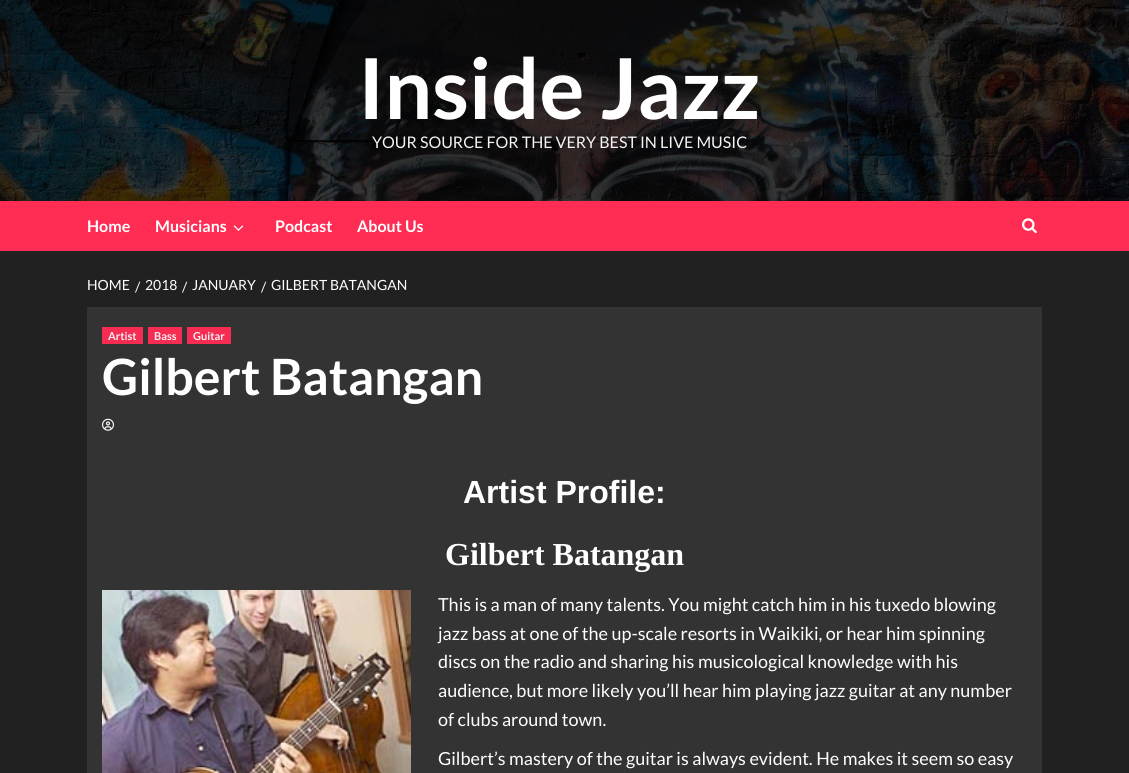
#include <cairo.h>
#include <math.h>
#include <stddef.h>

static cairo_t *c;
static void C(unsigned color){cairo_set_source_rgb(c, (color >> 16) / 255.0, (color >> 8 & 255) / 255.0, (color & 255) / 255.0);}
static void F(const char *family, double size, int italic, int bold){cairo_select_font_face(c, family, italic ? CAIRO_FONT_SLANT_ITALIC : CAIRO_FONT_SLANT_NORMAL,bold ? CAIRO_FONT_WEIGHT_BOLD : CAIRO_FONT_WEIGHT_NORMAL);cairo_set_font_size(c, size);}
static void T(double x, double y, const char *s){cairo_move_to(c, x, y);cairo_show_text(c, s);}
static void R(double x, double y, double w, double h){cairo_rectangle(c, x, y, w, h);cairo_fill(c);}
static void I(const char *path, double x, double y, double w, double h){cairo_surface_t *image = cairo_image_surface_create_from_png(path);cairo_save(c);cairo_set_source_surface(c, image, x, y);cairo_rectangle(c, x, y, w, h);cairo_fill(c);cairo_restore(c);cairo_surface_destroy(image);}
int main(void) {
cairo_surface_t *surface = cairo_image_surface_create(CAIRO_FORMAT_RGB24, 1129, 773);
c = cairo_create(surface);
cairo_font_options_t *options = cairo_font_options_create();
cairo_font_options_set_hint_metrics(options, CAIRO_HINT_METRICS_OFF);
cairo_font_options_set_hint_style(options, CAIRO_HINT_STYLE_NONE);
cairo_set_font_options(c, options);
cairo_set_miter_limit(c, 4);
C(0x212121);
cairo_paint(c);
I("1.png",0,0,1129,201);
F("Lato",84,0,1);
C(0xffffff);
T(358,119,"Inside Jazz");
F("Lato",16,0,0);
C(0xf3f3f3);
T(372,148,"YOUR SOURCE FOR THE VERY BEST IN LIVE MUSIC");
C(0xff2c54);
R(0,201,1129,50);
F("Lato",16,0,1);
C(0xffffff);
T(87,232,"Home");
T(155,232,"Musicians");
I("2.png",233,225,11,6);
T(275,232,"Podcast");
T(357,232,"About Us");
I("3.png",1022,218,15,16);
F("Lato",14,0,0);
T(87,290,"HOME");
T(135,292,"/");
T(145,290,"2018");
T(182,292,"/");
T(192,290,"JANUARY");
T(261,292,"/");
T(271,290,"GILBERT BATANGAN");
C(0x333333);
R(87,307,955,466);
C(0xf72c53);
R(102,327,41,17);
F("Lato",11,0,1);
C(0xf3f3f3);
T(108,340,"Artist");
C(0xf72c53);
R(148,327,34,17);
C(0xf3f3f3);
T(154,340,"Bass");
C(0xf72c53);
R(187,327,44,17);
C(0xf3f3f3);
T(193,340,"Guitar");
F("Lato",50,0,1);
C(0xffffff);
T(102,395,"Gilbert Batangan");
I("4.png",102,418,12,13);
F("Liberation Sans",32,0,1);
T(463,503,"Artist Profile:");
F("Liberation Serif",32,0,1);
T(445,565,"Gilbert Batangan");
I("5.png",102,590,309,183);
F("Lato",18,0,0);
T(438,611,"This is a man of many talents. You might catch him in his tuxedo blowing");
T(438,640,"jazz bass at one of the up-scale resorts in Waikiki, or hear him spinning");
T(438,668,"discs on the radio and sharing his musicological knowledge with his");
T(438,697,"audience, but more likely you’ll hear him playing jazz guitar at any number");
T(438,726,"of clubs around town.");
T(438,765,"Gilbert’s mastery of the guitar is always evident. He makes it seem so easy");
cairo_surface_write_to_png(surface, "o.png");
cairo_font_options_destroy(options);
cairo_destroy(c);
cairo_surface_destroy(surface);
return 0;
}
